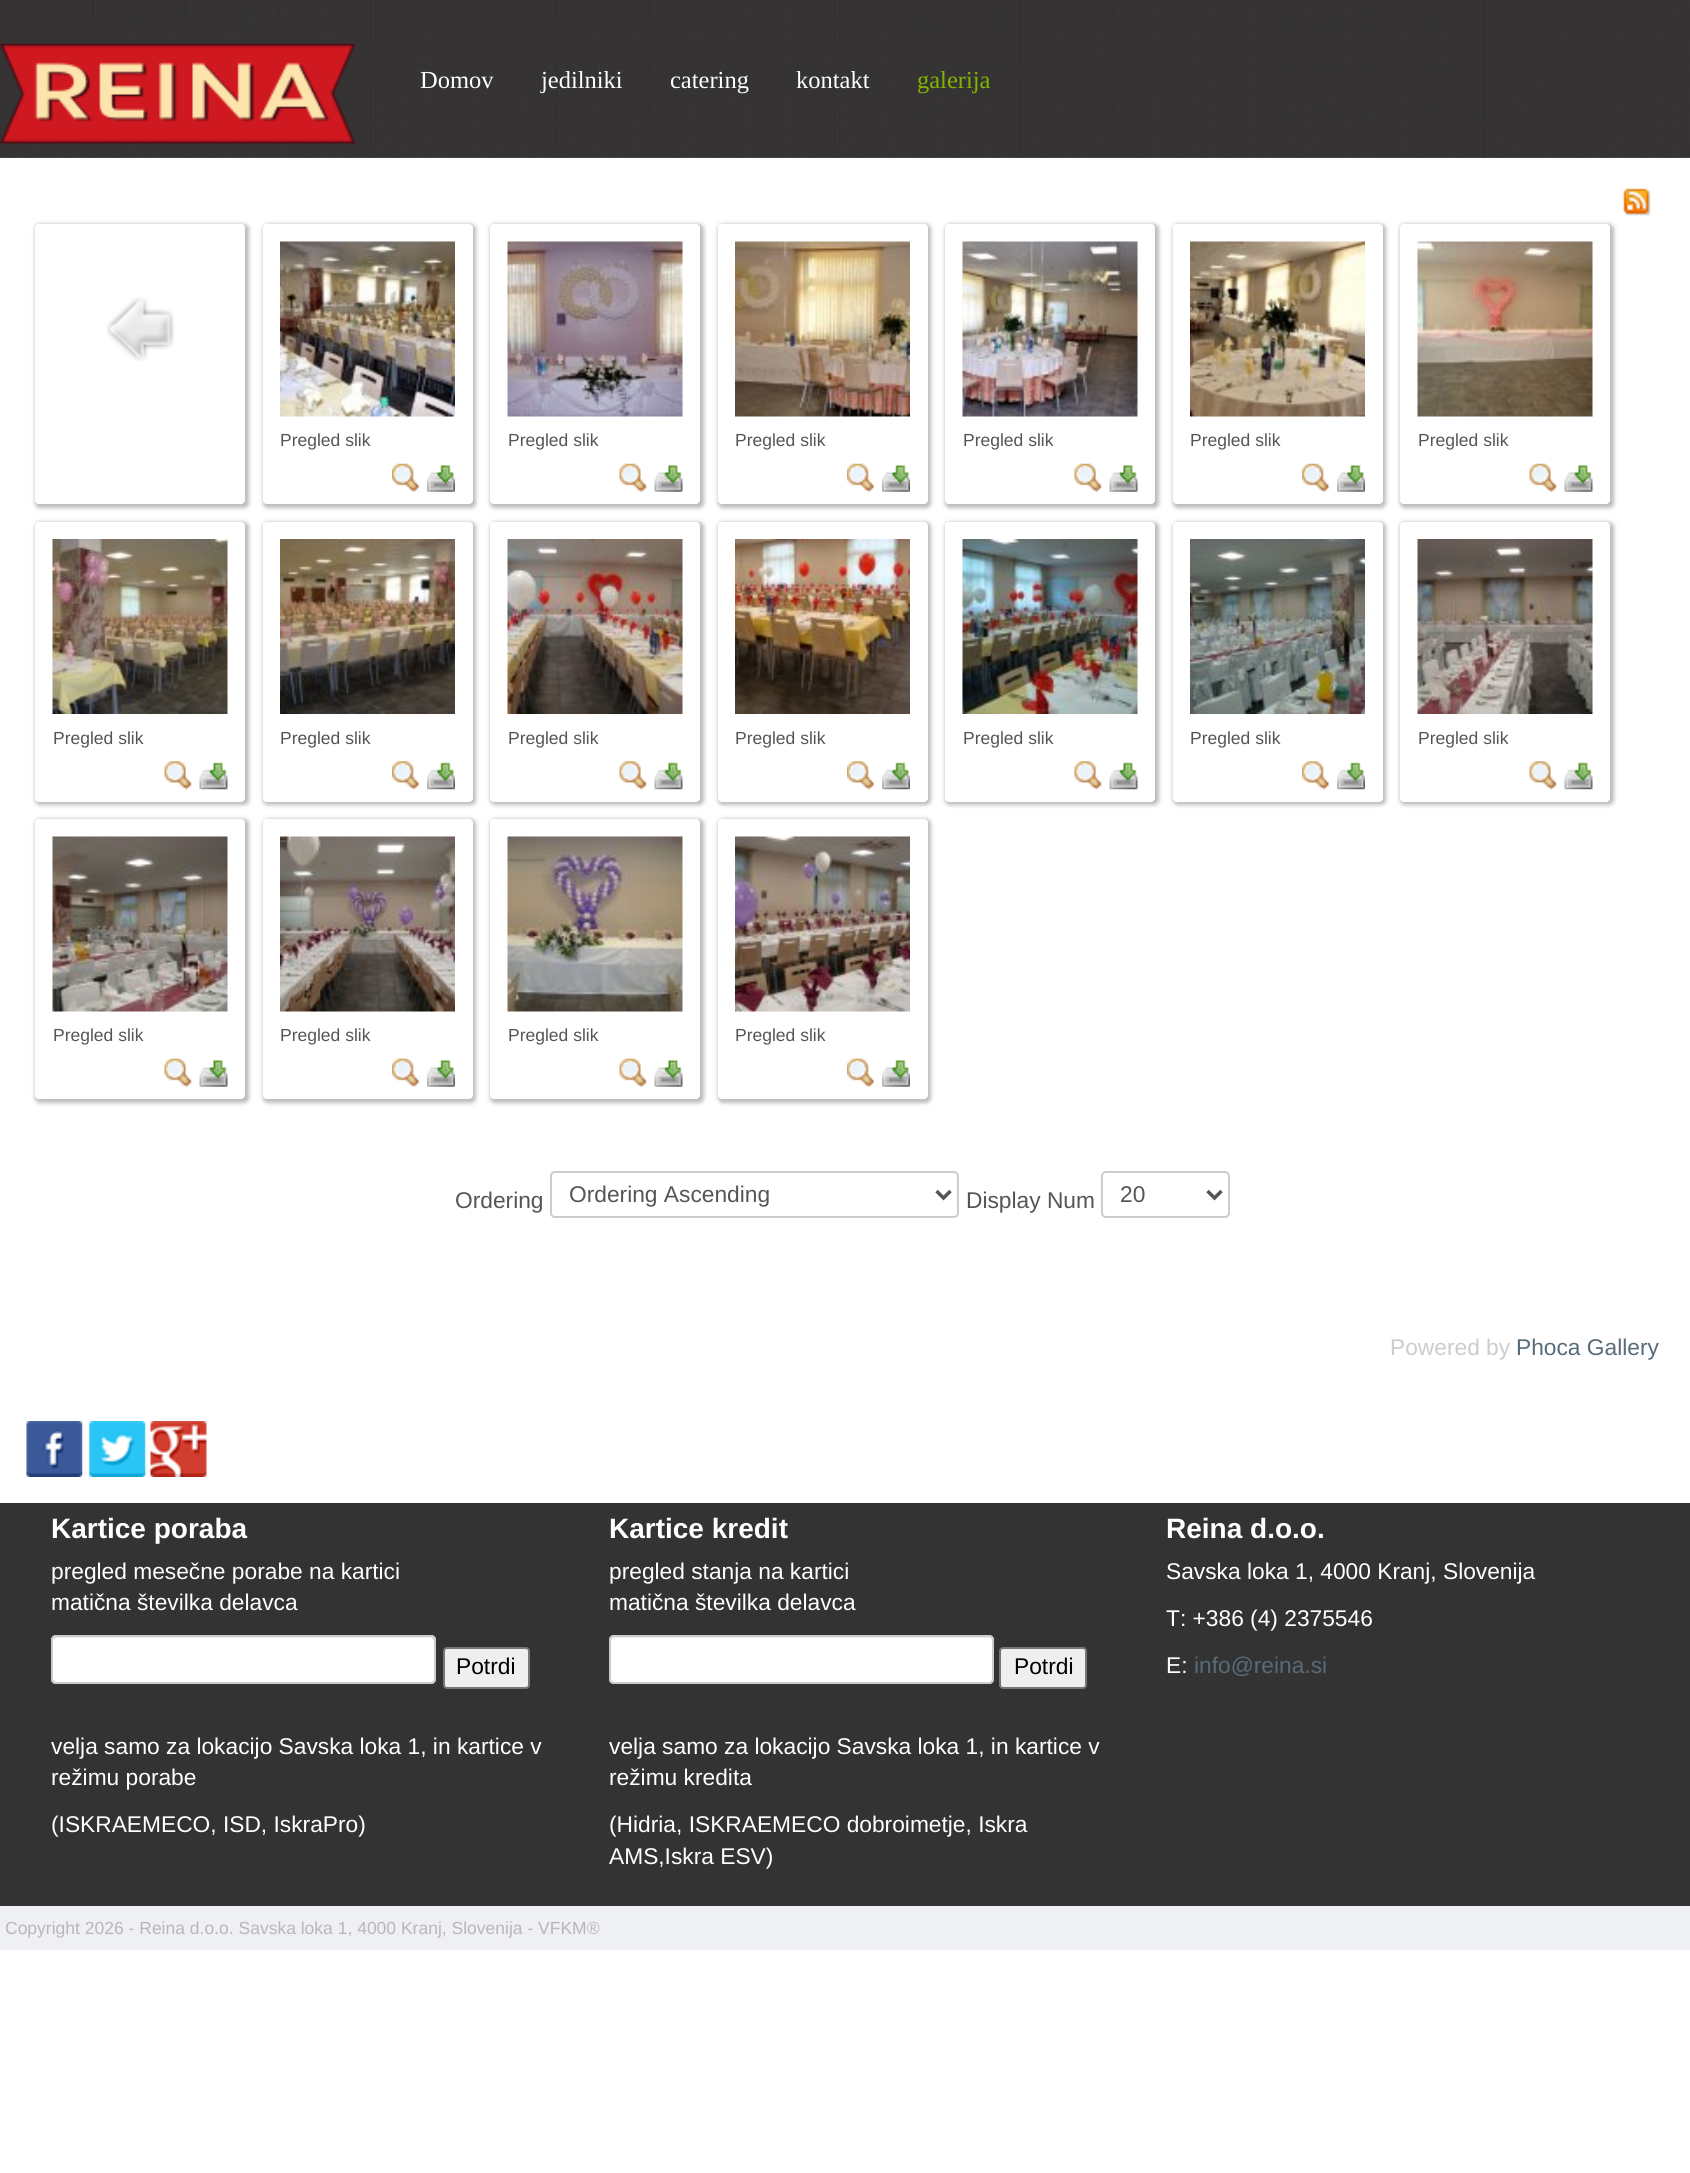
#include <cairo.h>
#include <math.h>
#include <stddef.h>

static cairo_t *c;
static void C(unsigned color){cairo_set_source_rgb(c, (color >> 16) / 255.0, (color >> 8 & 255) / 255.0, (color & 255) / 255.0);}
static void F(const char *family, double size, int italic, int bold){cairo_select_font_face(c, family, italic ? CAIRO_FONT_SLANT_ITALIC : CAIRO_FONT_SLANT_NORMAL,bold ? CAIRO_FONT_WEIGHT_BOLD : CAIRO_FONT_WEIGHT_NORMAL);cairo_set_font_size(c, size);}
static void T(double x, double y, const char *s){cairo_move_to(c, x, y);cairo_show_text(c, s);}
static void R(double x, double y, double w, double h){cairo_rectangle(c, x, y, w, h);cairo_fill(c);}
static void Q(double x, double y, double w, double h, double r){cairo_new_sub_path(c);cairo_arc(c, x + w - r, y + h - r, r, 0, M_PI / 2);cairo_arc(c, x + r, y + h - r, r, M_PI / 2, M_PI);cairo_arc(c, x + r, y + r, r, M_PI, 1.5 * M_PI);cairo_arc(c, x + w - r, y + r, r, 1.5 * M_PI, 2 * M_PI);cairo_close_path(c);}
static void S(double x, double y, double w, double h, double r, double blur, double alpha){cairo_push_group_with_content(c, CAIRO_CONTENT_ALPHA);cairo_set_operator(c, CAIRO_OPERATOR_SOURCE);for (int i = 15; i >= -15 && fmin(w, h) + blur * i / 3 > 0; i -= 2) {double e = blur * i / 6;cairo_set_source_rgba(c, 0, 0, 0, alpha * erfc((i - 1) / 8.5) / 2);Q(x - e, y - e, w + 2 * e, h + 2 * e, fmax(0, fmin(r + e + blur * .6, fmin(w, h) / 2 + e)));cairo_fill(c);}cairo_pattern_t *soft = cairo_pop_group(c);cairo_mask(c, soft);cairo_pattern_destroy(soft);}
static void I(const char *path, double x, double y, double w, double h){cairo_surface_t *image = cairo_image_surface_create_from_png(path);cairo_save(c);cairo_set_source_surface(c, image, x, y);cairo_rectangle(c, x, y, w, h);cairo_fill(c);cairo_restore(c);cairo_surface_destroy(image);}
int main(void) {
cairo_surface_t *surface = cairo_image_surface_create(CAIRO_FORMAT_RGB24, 1690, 2173);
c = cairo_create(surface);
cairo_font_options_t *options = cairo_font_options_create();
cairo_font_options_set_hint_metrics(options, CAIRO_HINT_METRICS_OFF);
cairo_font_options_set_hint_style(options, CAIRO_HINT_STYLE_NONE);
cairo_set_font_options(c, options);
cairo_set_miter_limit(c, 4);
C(0xffffff);
cairo_paint(c);
C(0x555555);
R(0,157,1690,1);
I("1.png",0,0,1690,158);
I("2.png",0,43,356,101);
F("Liberation Serif",24.5,0,0);
C(0xffffff);
T(420,88,"Domov");
T(541,88,"jedilniki");
T(670,88,"catering");
T(796,88,"kontakt");
C(0x82b501);
T(917,88,"galerija");
I("3.png",1623,188,28,28);
cairo_save(c);
cairo_set_fill_rule(c,CAIRO_FILL_RULE_EVEN_ODD);
cairo_new_path(c);
cairo_move_to(c,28,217);
cairo_line_to(c,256,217);
cairo_line_to(c,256,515);
cairo_line_to(c,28,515);
cairo_close_path(c);
cairo_move_to(c,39,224);
cairo_line_to(c,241,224);
cairo_curve_to(c,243,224,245,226,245,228);
cairo_line_to(c,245,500);
cairo_curve_to(c,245,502,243,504,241,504);
cairo_line_to(c,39,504);
cairo_curve_to(c,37,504,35,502,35,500);
cairo_line_to(c,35,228);
cairo_curve_to(c,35,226,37,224,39,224);
cairo_close_path(c);
cairo_clip(c);
C(0x787878);
S(35,224,214,284,5,2,.5);
cairo_restore(c);
I("4.png",106,297,69,64);
cairo_save(c);
cairo_set_fill_rule(c,CAIRO_FILL_RULE_EVEN_ODD);
cairo_new_path(c);
cairo_move_to(c,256,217);
cairo_line_to(c,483,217);
cairo_line_to(c,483,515);
cairo_line_to(c,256,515);
cairo_close_path(c);
cairo_move_to(c,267,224);
cairo_line_to(c,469,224);
cairo_curve_to(c,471,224,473,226,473,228);
cairo_line_to(c,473,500);
cairo_curve_to(c,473,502,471,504,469,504);
cairo_line_to(c,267,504);
cairo_curve_to(c,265,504,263,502,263,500);
cairo_line_to(c,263,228);
cairo_curve_to(c,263,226,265,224,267,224);
cairo_close_path(c);
cairo_clip(c);
C(0x787878);
S(263,224,213,284,5,2,.5);
cairo_restore(c);
I("5.png",280,241,175,176);
F("Liberation Sans",17.5,0,0);
C(0x555555);
T(280,446,"Pregled slik");
I("6.png",392,463,28,29);
I("7.png",427,465,28,27);
cairo_save(c);
cairo_set_fill_rule(c,CAIRO_FILL_RULE_EVEN_ODD);
cairo_new_path(c);
cairo_move_to(c,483,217);
cairo_line_to(c,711,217);
cairo_line_to(c,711,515);
cairo_line_to(c,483,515);
cairo_close_path(c);
cairo_move_to(c,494,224);
cairo_line_to(c,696,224);
cairo_curve_to(c,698,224,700,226,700,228);
cairo_line_to(c,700,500);
cairo_curve_to(c,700,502,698,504,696,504);
cairo_line_to(c,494,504);
cairo_curve_to(c,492,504,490,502,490,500);
cairo_line_to(c,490,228);
cairo_curve_to(c,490,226,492,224,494,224);
cairo_close_path(c);
cairo_clip(c);
C(0x787878);
S(490,224,214,284,5,2,.5);
cairo_restore(c);
I("8.png",507,241,176,176);
T(508,446,"Pregled slik");
I("9.png",619,463,28,29);
I("10.png",654,465,29,27);
cairo_save(c);
cairo_set_fill_rule(c,CAIRO_FILL_RULE_EVEN_ODD);
cairo_new_path(c);
cairo_move_to(c,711,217);
cairo_line_to(c,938,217);
cairo_line_to(c,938,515);
cairo_line_to(c,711,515);
cairo_close_path(c);
cairo_move_to(c,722,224);
cairo_line_to(c,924,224);
cairo_curve_to(c,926,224,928,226,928,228);
cairo_line_to(c,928,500);
cairo_curve_to(c,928,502,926,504,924,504);
cairo_line_to(c,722,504);
cairo_curve_to(c,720,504,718,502,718,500);
cairo_line_to(c,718,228);
cairo_curve_to(c,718,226,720,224,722,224);
cairo_close_path(c);
cairo_clip(c);
C(0x787878);
S(718,224,213,284,5,2,.5);
cairo_restore(c);
I("11.png",735,241,175,176);
T(735,446,"Pregled slik");
I("6.png",847,463,28,29);
I("7.png",882,465,28,27);
cairo_save(c);
cairo_set_fill_rule(c,CAIRO_FILL_RULE_EVEN_ODD);
cairo_new_path(c);
cairo_move_to(c,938,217);
cairo_line_to(c,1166,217);
cairo_line_to(c,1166,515);
cairo_line_to(c,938,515);
cairo_close_path(c);
cairo_move_to(c,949,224);
cairo_line_to(c,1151,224);
cairo_curve_to(c,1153,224,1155,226,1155,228);
cairo_line_to(c,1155,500);
cairo_curve_to(c,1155,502,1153,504,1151,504);
cairo_line_to(c,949,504);
cairo_curve_to(c,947,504,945,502,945,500);
cairo_line_to(c,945,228);
cairo_curve_to(c,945,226,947,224,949,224);
cairo_close_path(c);
cairo_clip(c);
C(0x787878);
S(945,224,214,284,5,2,.5);
cairo_restore(c);
I("12.png",962,241,176,176);
T(963,446,"Pregled slik");
I("13.png",1074,463,28,29);
I("10.png",1109,465,29,27);
cairo_save(c);
cairo_set_fill_rule(c,CAIRO_FILL_RULE_EVEN_ODD);
cairo_new_path(c);
cairo_move_to(c,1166,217);
cairo_line_to(c,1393,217);
cairo_line_to(c,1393,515);
cairo_line_to(c,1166,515);
cairo_close_path(c);
cairo_move_to(c,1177,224);
cairo_line_to(c,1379,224);
cairo_curve_to(c,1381,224,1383,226,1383,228);
cairo_line_to(c,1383,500);
cairo_curve_to(c,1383,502,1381,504,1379,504);
cairo_line_to(c,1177,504);
cairo_curve_to(c,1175,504,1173,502,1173,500);
cairo_line_to(c,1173,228);
cairo_curve_to(c,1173,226,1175,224,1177,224);
cairo_close_path(c);
cairo_clip(c);
C(0x787878);
S(1173,224,213,284,5,2,.5);
cairo_restore(c);
I("14.png",1190,241,175,176);
T(1190,446,"Pregled slik");
I("15.png",1302,463,28,29);
I("7.png",1337,465,28,27);
cairo_save(c);
cairo_set_fill_rule(c,CAIRO_FILL_RULE_EVEN_ODD);
cairo_new_path(c);
cairo_move_to(c,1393,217);
cairo_line_to(c,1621,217);
cairo_line_to(c,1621,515);
cairo_line_to(c,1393,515);
cairo_close_path(c);
cairo_move_to(c,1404,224);
cairo_line_to(c,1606,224);
cairo_curve_to(c,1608,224,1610,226,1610,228);
cairo_line_to(c,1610,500);
cairo_curve_to(c,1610,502,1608,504,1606,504);
cairo_line_to(c,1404,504);
cairo_curve_to(c,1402,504,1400,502,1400,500);
cairo_line_to(c,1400,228);
cairo_curve_to(c,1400,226,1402,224,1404,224);
cairo_close_path(c);
cairo_clip(c);
C(0x787878);
S(1400,224,214,284,5,2,.5);
cairo_restore(c);
I("16.png",1417,241,176,176);
T(1418,446,"Pregled slik");
I("9.png",1529,463,28,29);
I("17.png",1564,465,29,27);
cairo_save(c);
cairo_set_fill_rule(c,CAIRO_FILL_RULE_EVEN_ODD);
cairo_new_path(c);
cairo_move_to(c,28,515);
cairo_line_to(c,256,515);
cairo_line_to(c,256,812);
cairo_line_to(c,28,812);
cairo_close_path(c);
cairo_move_to(c,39,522);
cairo_line_to(c,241,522);
cairo_curve_to(c,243,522,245,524,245,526);
cairo_line_to(c,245,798);
cairo_curve_to(c,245,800,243,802,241,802);
cairo_line_to(c,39,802);
cairo_curve_to(c,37,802,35,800,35,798);
cairo_line_to(c,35,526);
cairo_curve_to(c,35,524,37,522,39,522);
cairo_close_path(c);
cairo_clip(c);
C(0x787878);
S(35,522,214,283,5,2,.5);
cairo_restore(c);
I("18.png",52,539,176,175);
T(53,744,"Pregled slik");
I("19.png",164,761,28,29);
I("20.png",199,762,29,28);
cairo_save(c);
cairo_set_fill_rule(c,CAIRO_FILL_RULE_EVEN_ODD);
cairo_new_path(c);
cairo_move_to(c,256,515);
cairo_line_to(c,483,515);
cairo_line_to(c,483,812);
cairo_line_to(c,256,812);
cairo_close_path(c);
cairo_move_to(c,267,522);
cairo_line_to(c,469,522);
cairo_curve_to(c,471,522,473,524,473,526);
cairo_line_to(c,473,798);
cairo_curve_to(c,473,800,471,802,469,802);
cairo_line_to(c,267,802);
cairo_curve_to(c,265,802,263,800,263,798);
cairo_line_to(c,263,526);
cairo_curve_to(c,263,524,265,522,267,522);
cairo_close_path(c);
cairo_clip(c);
C(0x787878);
S(263,522,213,283,5,2,.5);
cairo_restore(c);
I("21.png",280,539,175,175);
T(280,744,"Pregled slik");
I("22.png",392,761,28,29);
I("23.png",427,762,28,28);
cairo_save(c);
cairo_set_fill_rule(c,CAIRO_FILL_RULE_EVEN_ODD);
cairo_new_path(c);
cairo_move_to(c,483,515);
cairo_line_to(c,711,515);
cairo_line_to(c,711,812);
cairo_line_to(c,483,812);
cairo_close_path(c);
cairo_move_to(c,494,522);
cairo_line_to(c,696,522);
cairo_curve_to(c,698,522,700,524,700,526);
cairo_line_to(c,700,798);
cairo_curve_to(c,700,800,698,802,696,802);
cairo_line_to(c,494,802);
cairo_curve_to(c,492,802,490,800,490,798);
cairo_line_to(c,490,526);
cairo_curve_to(c,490,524,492,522,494,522);
cairo_close_path(c);
cairo_clip(c);
C(0x787878);
S(490,522,214,283,5,2,.5);
cairo_restore(c);
I("24.png",507,539,176,175);
T(508,744,"Pregled slik");
I("25.png",619,761,28,29);
I("26.png",654,762,29,28);
cairo_save(c);
cairo_set_fill_rule(c,CAIRO_FILL_RULE_EVEN_ODD);
cairo_new_path(c);
cairo_move_to(c,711,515);
cairo_line_to(c,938,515);
cairo_line_to(c,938,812);
cairo_line_to(c,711,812);
cairo_close_path(c);
cairo_move_to(c,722,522);
cairo_line_to(c,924,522);
cairo_curve_to(c,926,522,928,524,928,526);
cairo_line_to(c,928,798);
cairo_curve_to(c,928,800,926,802,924,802);
cairo_line_to(c,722,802);
cairo_curve_to(c,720,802,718,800,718,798);
cairo_line_to(c,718,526);
cairo_curve_to(c,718,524,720,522,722,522);
cairo_close_path(c);
cairo_clip(c);
C(0x787878);
S(718,522,213,283,5,2,.5);
cairo_restore(c);
I("27.png",735,539,175,175);
T(735,744,"Pregled slik");
I("22.png",847,761,28,29);
I("23.png",882,762,28,28);
cairo_save(c);
cairo_set_fill_rule(c,CAIRO_FILL_RULE_EVEN_ODD);
cairo_new_path(c);
cairo_move_to(c,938,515);
cairo_line_to(c,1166,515);
cairo_line_to(c,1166,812);
cairo_line_to(c,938,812);
cairo_close_path(c);
cairo_move_to(c,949,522);
cairo_line_to(c,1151,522);
cairo_curve_to(c,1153,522,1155,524,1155,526);
cairo_line_to(c,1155,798);
cairo_curve_to(c,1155,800,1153,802,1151,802);
cairo_line_to(c,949,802);
cairo_curve_to(c,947,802,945,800,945,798);
cairo_line_to(c,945,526);
cairo_curve_to(c,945,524,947,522,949,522);
cairo_close_path(c);
cairo_clip(c);
C(0x787878);
S(945,522,214,283,5,2,.5);
cairo_restore(c);
I("28.png",962,539,176,175);
T(963,744,"Pregled slik");
I("19.png",1074,761,28,29);
I("26.png",1109,762,29,28);
cairo_save(c);
cairo_set_fill_rule(c,CAIRO_FILL_RULE_EVEN_ODD);
cairo_new_path(c);
cairo_move_to(c,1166,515);
cairo_line_to(c,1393,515);
cairo_line_to(c,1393,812);
cairo_line_to(c,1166,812);
cairo_close_path(c);
cairo_move_to(c,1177,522);
cairo_line_to(c,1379,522);
cairo_curve_to(c,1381,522,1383,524,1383,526);
cairo_line_to(c,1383,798);
cairo_curve_to(c,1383,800,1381,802,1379,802);
cairo_line_to(c,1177,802);
cairo_curve_to(c,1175,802,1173,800,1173,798);
cairo_line_to(c,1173,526);
cairo_curve_to(c,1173,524,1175,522,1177,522);
cairo_close_path(c);
cairo_clip(c);
C(0x787878);
S(1173,522,213,283,5,2,.5);
cairo_restore(c);
I("29.png",1190,539,175,175);
T(1190,744,"Pregled slik");
I("30.png",1302,761,28,29);
I("23.png",1337,762,28,28);
cairo_save(c);
cairo_set_fill_rule(c,CAIRO_FILL_RULE_EVEN_ODD);
cairo_new_path(c);
cairo_move_to(c,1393,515);
cairo_line_to(c,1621,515);
cairo_line_to(c,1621,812);
cairo_line_to(c,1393,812);
cairo_close_path(c);
cairo_move_to(c,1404,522);
cairo_line_to(c,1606,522);
cairo_curve_to(c,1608,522,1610,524,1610,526);
cairo_line_to(c,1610,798);
cairo_curve_to(c,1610,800,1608,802,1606,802);
cairo_line_to(c,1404,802);
cairo_curve_to(c,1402,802,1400,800,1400,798);
cairo_line_to(c,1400,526);
cairo_curve_to(c,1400,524,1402,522,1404,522);
cairo_close_path(c);
cairo_clip(c);
C(0x787878);
S(1400,522,214,283,5,2,.5);
cairo_restore(c);
I("31.png",1417,539,176,175);
T(1418,744,"Pregled slik");
I("25.png",1529,761,28,29);
I("32.png",1564,762,29,28);
cairo_save(c);
cairo_set_fill_rule(c,CAIRO_FILL_RULE_EVEN_ODD);
cairo_new_path(c);
cairo_move_to(c,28,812);
cairo_line_to(c,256,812);
cairo_line_to(c,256,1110);
cairo_line_to(c,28,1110);
cairo_close_path(c);
cairo_move_to(c,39,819);
cairo_line_to(c,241,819);
cairo_curve_to(c,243,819,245,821,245,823);
cairo_line_to(c,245,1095);
cairo_curve_to(c,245,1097,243,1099,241,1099);
cairo_line_to(c,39,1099);
cairo_curve_to(c,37,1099,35,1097,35,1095);
cairo_line_to(c,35,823);
cairo_curve_to(c,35,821,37,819,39,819);
cairo_close_path(c);
cairo_clip(c);
C(0x787878);
S(35,819,214,284,5,2,.5);
cairo_restore(c);
I("33.png",52,836,176,176);
T(53,1041,"Pregled slik");
I("13.png",164,1058,28,29);
I("34.png",199,1060,29,27);
cairo_save(c);
cairo_set_fill_rule(c,CAIRO_FILL_RULE_EVEN_ODD);
cairo_new_path(c);
cairo_move_to(c,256,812);
cairo_line_to(c,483,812);
cairo_line_to(c,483,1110);
cairo_line_to(c,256,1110);
cairo_close_path(c);
cairo_move_to(c,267,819);
cairo_line_to(c,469,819);
cairo_curve_to(c,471,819,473,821,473,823);
cairo_line_to(c,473,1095);
cairo_curve_to(c,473,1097,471,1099,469,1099);
cairo_line_to(c,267,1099);
cairo_curve_to(c,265,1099,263,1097,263,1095);
cairo_line_to(c,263,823);
cairo_curve_to(c,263,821,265,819,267,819);
cairo_close_path(c);
cairo_clip(c);
C(0x787878);
S(263,819,213,284,5,2,.5);
cairo_restore(c);
I("35.png",280,836,175,176);
T(280,1041,"Pregled slik");
I("6.png",392,1058,28,29);
I("7.png",427,1060,28,27);
cairo_save(c);
cairo_set_fill_rule(c,CAIRO_FILL_RULE_EVEN_ODD);
cairo_new_path(c);
cairo_move_to(c,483,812);
cairo_line_to(c,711,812);
cairo_line_to(c,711,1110);
cairo_line_to(c,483,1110);
cairo_close_path(c);
cairo_move_to(c,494,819);
cairo_line_to(c,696,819);
cairo_curve_to(c,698,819,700,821,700,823);
cairo_line_to(c,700,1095);
cairo_curve_to(c,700,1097,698,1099,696,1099);
cairo_line_to(c,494,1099);
cairo_curve_to(c,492,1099,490,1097,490,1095);
cairo_line_to(c,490,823);
cairo_curve_to(c,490,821,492,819,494,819);
cairo_close_path(c);
cairo_clip(c);
C(0x787878);
S(490,819,214,284,5,2,.5);
cairo_restore(c);
I("36.png",507,836,176,176);
T(508,1041,"Pregled slik");
I("9.png",619,1058,28,29);
I("10.png",654,1060,29,27);
cairo_save(c);
cairo_set_fill_rule(c,CAIRO_FILL_RULE_EVEN_ODD);
cairo_new_path(c);
cairo_move_to(c,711,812);
cairo_line_to(c,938,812);
cairo_line_to(c,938,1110);
cairo_line_to(c,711,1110);
cairo_close_path(c);
cairo_move_to(c,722,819);
cairo_line_to(c,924,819);
cairo_curve_to(c,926,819,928,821,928,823);
cairo_line_to(c,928,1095);
cairo_curve_to(c,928,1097,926,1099,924,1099);
cairo_line_to(c,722,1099);
cairo_curve_to(c,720,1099,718,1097,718,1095);
cairo_line_to(c,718,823);
cairo_curve_to(c,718,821,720,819,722,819);
cairo_close_path(c);
cairo_clip(c);
C(0x787878);
S(718,819,213,284,5,2,.5);
cairo_restore(c);
I("37.png",735,836,175,176);
T(735,1041,"Pregled slik");
I("6.png",847,1058,28,29);
I("7.png",882,1060,28,27);
F("Liberation Sans",22.75,0,0);
T(455,1208,"Ordering");
Q(551,1172,407,45,4);
C(0xcccccc);
cairo_stroke(c);
cairo_new_path(c);
cairo_move_to(c,936.5,1191);
cairo_line_to(c,943.5,1198);
cairo_line_to(c,950.5,1191);
C(0x555555);
cairo_set_line_width(c,3.5);
cairo_stroke(c);
T(569,1202,"Ordering Ascending");
T(966,1208,"Display Num");
Q(1102,1172,127,45,4);
C(0xcccccc);
cairo_set_line_width(c,2);
cairo_stroke(c);
cairo_new_path(c);
cairo_move_to(c,1207.5,1191);
cairo_line_to(c,1214.5,1198);
cairo_line_to(c,1221.5,1191);
C(0x555555);
cairo_set_line_width(c,3.5);
cairo_stroke(c);
T(1120,1202,"20");
C(0xcccccc);
T(1390,1355,"Powered by");
C(0x586b79);
T(1516,1355,"Phoca Gallery");
I("38.png",26,1421,57,56);
I("39.png",89,1421,57,56);
I("40.png",150,1421,57,56);
C(0x333333);
R(0,1503,1690,403);
F("Liberation Sans",28,0,1);
C(0xffffff);
T(51,1538,"Kartice poraba");
F("Liberation Sans",22.75,0,0);
T(51,1579,"pregled mesečne porabe na kartici");
T(51,1610,"matična številka delavca");
Q(51,1635,385,49,5);
cairo_fill(c);
C(0xececec);
cairo_new_path(c);
cairo_move_to(c,56,1638);
cairo_line_to(c,430,1638);
cairo_curve_to(c,432,1638,434,1640,434,1642);
cairo_line_to(c,434,1640);
cairo_curve_to(c,434,1638,432,1636,430,1636);
cairo_line_to(c,57,1636);
cairo_curve_to(c,55,1636,53,1638,53,1639);
cairo_close_path(c);
cairo_fill(c);
Q(52,1636,383,47,4);
C(0xcccccc);
cairo_set_line_width(c,2);
cairo_stroke(c);
C(0xefefef);
Q(444,1648,85,40,3);
cairo_fill_preserve(c);
C(0x767676);
cairo_stroke(c);
C(0x000000);
T(456,1674,"Potrdi");
C(0xffffff);
T(51,1754,"velja samo za lokacijo Savska loka 1, in kartice v");
T(51,1785,"režimu porabe");
T(51,1832,"(ISKRAEMECO, ISD, IskraPro)");
F("Liberation Sans",28,0,1);
T(609,1538,"Kartice kredit");
F("Liberation Sans",22.75,0,0);
T(609,1579,"pregled stanja na kartici");
T(609,1610,"matična številka delavca");
Q(609,1635,385,49,5);
cairo_fill(c);
C(0xececec);
cairo_new_path(c);
cairo_move_to(c,614,1638);
cairo_line_to(c,989,1638);
cairo_curve_to(c,991,1638,992,1640,992,1642);
cairo_line_to(c,992,1640);
cairo_curve_to(c,992,1638,990,1636,988,1636);
cairo_line_to(c,615,1636);
cairo_curve_to(c,613,1636,611,1638,611,1640);
cairo_line_to(c,611,1642);
cairo_curve_to(c,611,1640,612,1638,614,1638);
cairo_close_path(c);
cairo_fill(c);
Q(610,1636,383,47,4);
C(0xcccccc);
cairo_stroke(c);
C(0xefefef);
Q(1000,1648,86,40,3);
cairo_fill_preserve(c);
C(0x767676);
cairo_stroke(c);
C(0x000000);
T(1014,1674,"Potrdi");
C(0xffffff);
T(609,1754,"velja samo za lokacijo Savska loka 1, in kartice v");
T(609,1785,"režimu kredita");
T(609,1832,"(Hidria, ISKRAEMECO dobroimetje, Iskra");
T(609,1864,"AMS,Iskra ESV)");
F("Liberation Sans",28,0,1);
T(1166,1538,"Reina d.o.o.");
F("Liberation Sans",22.75,0,0);
T(1166,1579,"Savska loka 1, 4000 Kranj, Slovenija");
T(1166,1626,"T: +386 (4) 2375546");
T(1166,1673,"E:");
C(0x586b79);
T(1194,1673,"info@reina.si");
C(0xeff0f4);
R(0,1906,1690,44);
F("Liberation Sans",17.5,0,0);
C(0xb7b7b7);
T(5,1934,"Copyright 2026 - Reina d.o.o. Savska loka 1, 4000 Kranj, Slovenija - VFKM®");
cairo_surface_write_to_png(surface, "o.png");
cairo_font_options_destroy(options);
cairo_destroy(c);
cairo_surface_destroy(surface);
return 0;
}
